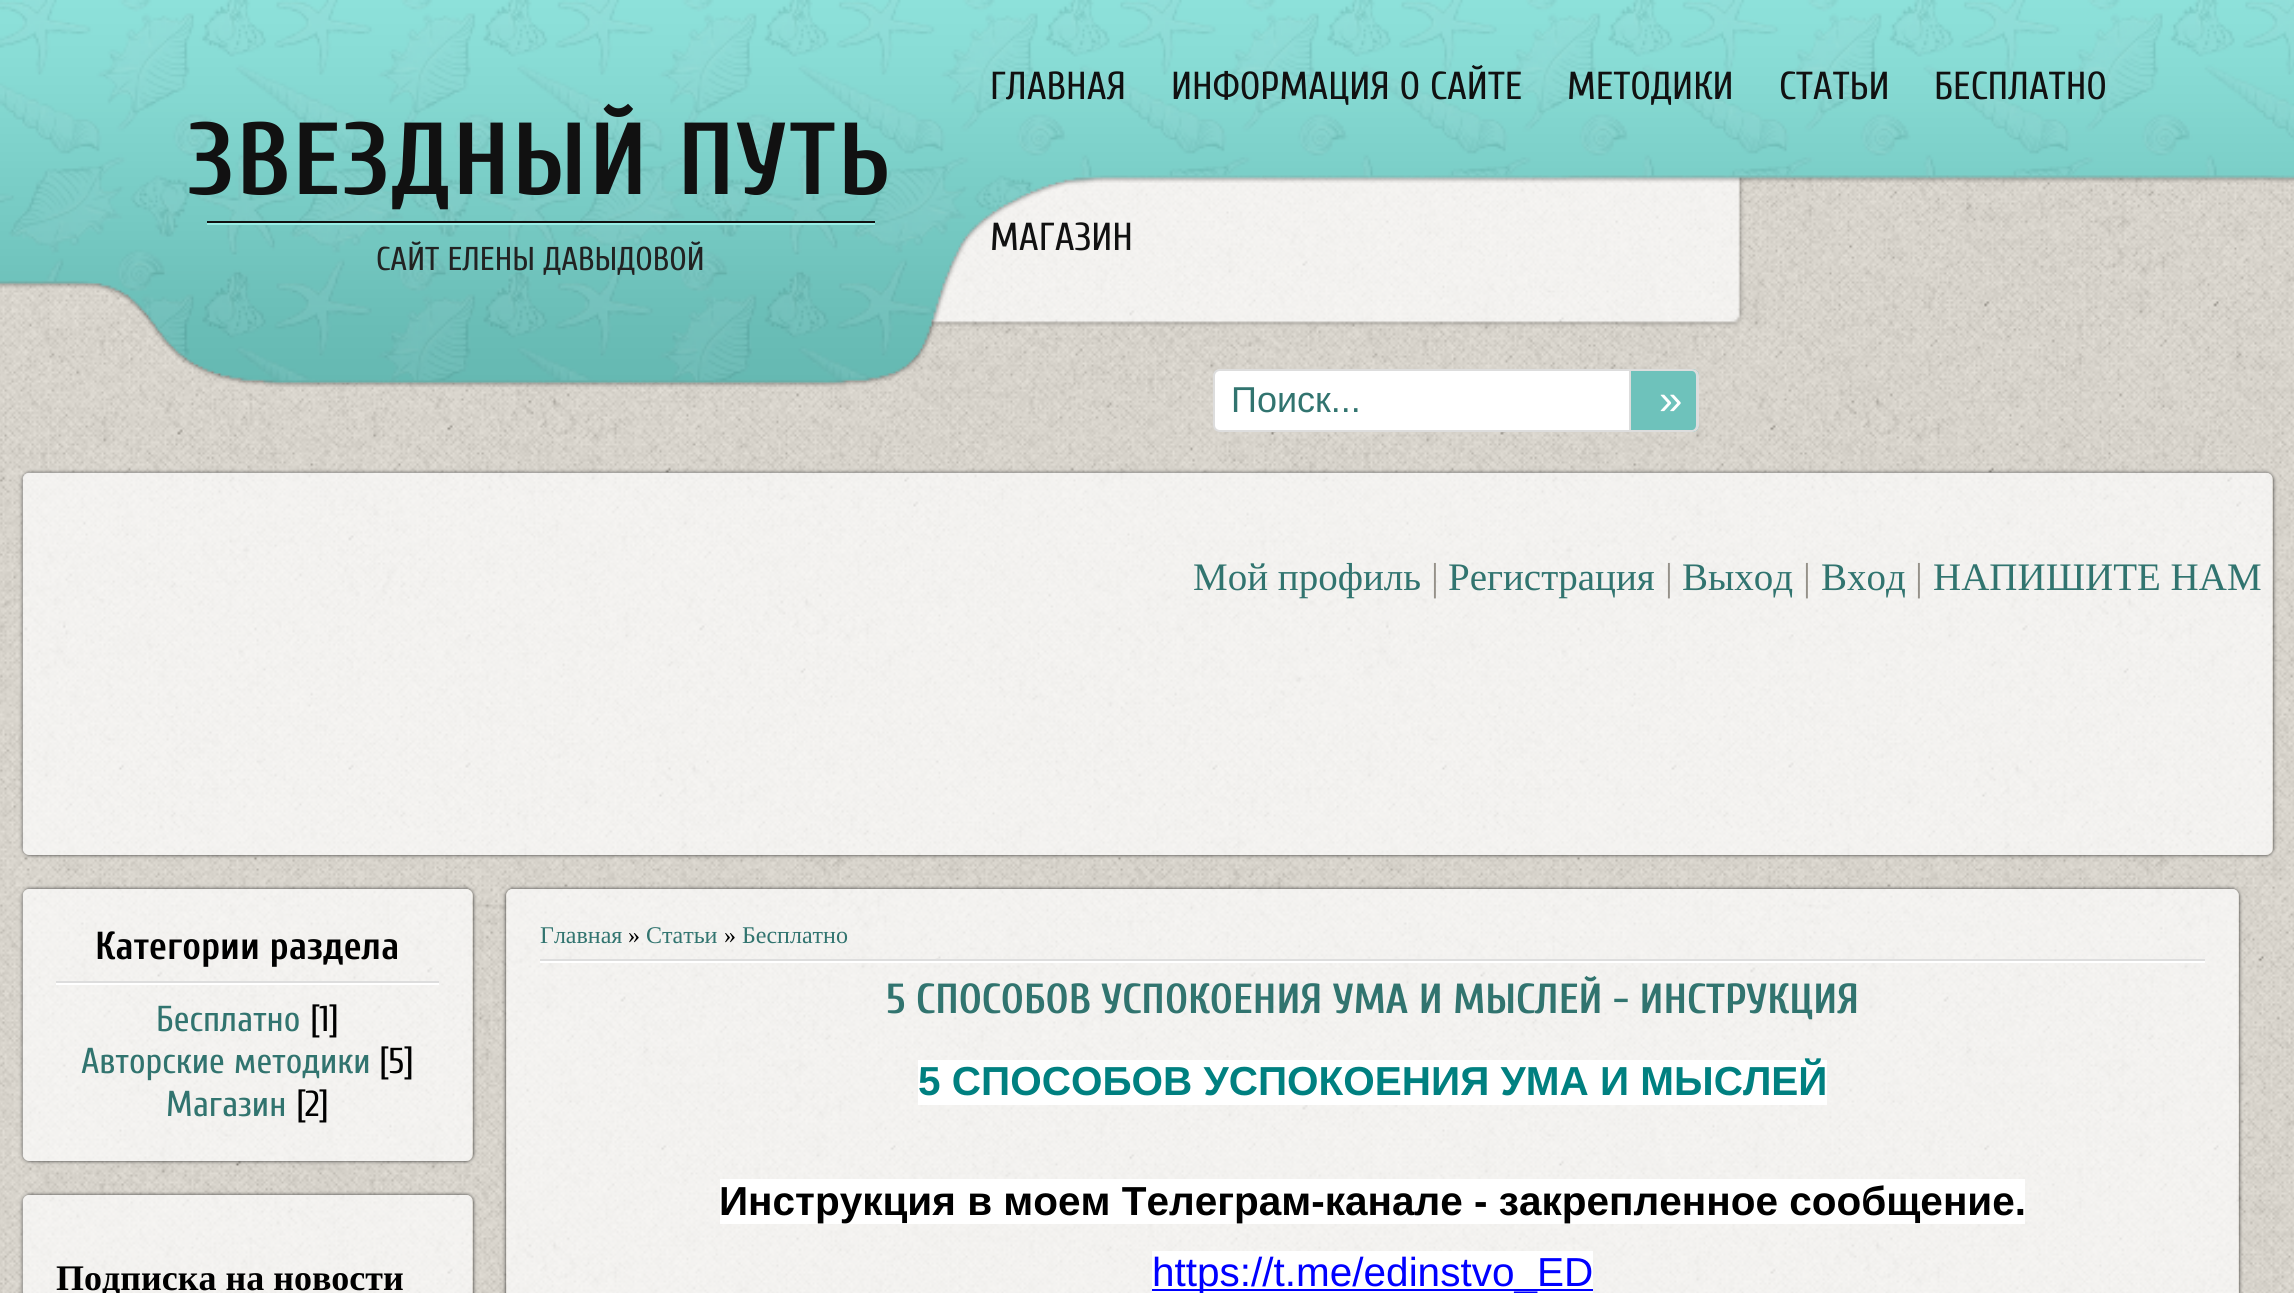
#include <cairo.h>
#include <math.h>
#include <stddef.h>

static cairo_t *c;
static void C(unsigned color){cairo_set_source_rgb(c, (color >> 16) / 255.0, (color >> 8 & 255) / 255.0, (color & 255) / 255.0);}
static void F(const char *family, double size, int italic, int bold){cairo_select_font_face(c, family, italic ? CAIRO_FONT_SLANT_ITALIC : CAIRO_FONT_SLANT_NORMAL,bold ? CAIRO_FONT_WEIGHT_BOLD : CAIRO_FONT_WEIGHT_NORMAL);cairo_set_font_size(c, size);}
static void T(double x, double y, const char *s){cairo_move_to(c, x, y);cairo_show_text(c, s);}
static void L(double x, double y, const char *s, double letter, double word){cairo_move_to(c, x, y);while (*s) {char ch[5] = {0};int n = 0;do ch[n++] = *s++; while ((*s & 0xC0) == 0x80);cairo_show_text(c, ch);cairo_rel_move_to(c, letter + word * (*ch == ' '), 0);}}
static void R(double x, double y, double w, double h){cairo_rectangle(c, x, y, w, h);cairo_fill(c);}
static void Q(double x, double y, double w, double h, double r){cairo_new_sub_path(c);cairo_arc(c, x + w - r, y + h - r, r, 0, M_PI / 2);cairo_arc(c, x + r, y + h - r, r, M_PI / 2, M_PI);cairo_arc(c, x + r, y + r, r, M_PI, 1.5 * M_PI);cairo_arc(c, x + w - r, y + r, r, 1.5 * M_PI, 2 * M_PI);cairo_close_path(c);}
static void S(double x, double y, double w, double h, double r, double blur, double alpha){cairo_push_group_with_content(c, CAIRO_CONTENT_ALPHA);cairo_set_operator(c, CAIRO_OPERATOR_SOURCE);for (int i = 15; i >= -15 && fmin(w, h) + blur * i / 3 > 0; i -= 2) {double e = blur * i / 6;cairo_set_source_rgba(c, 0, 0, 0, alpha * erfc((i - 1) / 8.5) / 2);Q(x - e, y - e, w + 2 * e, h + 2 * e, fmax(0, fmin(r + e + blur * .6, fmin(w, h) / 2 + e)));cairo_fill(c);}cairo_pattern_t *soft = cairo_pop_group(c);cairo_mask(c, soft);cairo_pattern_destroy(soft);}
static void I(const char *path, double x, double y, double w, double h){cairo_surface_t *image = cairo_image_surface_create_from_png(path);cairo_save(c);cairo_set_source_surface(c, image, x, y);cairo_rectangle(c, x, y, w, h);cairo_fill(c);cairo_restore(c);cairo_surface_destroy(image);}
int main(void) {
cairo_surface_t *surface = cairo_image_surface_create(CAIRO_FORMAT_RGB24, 2294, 1293);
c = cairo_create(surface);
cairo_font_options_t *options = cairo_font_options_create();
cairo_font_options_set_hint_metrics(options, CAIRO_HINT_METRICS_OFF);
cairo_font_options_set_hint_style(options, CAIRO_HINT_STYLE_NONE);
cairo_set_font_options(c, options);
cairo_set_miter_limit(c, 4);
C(0xffffff);
cairo_paint(c);
I("1.png",0,175,2294,1118);
I("2.png",0,0,2294,387);
F("Cuprum",102,0,1);
C(0x111111);
L(188,194,"ЗВЕЗДНЫЙ ПУТЬ",2.25,0);
R(207,221,668,2);
C(0x99ede5);
R(207,223,668,2);
F("Cuprum",33,0,0);
C(0x222222);
T(376,270,"САЙТ ЕЛЕНЫ ДАВЫДОВОЙ");
F("Cuprum",39,0,0);
C(0x111111);
T(990,99,"ГЛАВНАЯ");
T(1171,99,"ИНФОРМАЦИЯ О САЙТЕ");
T(1567,99,"МЕТОДИКИ");
T(1779,99,"СТАТЬИ");
T(1934,99,"БЕСПЛАТНО");
T(990,250,"МАГАЗИН");
C(0xffffff);
cairo_new_path(c);
cairo_move_to(c,1220,370);
cairo_line_to(c,1630,370);
cairo_line_to(c,1630,431);
cairo_line_to(c,1220,431);
cairo_curve_to(c,1216.5,431,1214,428.5,1214,425);
cairo_line_to(c,1214,376);
cairo_curve_to(c,1214,372.5,1216.5,370,1220,370);
cairo_close_path(c);
cairo_fill_preserve(c);
C(0xdddddd);
cairo_stroke(c);
F("Liberation Sans",36,0,0);
C(0x31746f);
T(1231,412,"Поиск...");
C(0x6ec2bb);
cairo_new_path(c);
cairo_move_to(c,1631,369);
cairo_line_to(c,1692,369);
cairo_curve_to(c,1696,369,1699,372,1699,376);
cairo_line_to(c,1699,425);
cairo_curve_to(c,1699,429,1696,432,1692,432);
cairo_line_to(c,1631,432);
cairo_close_path(c);
cairo_fill(c);
C(0xdddddd);
cairo_set_fill_rule(c,CAIRO_FILL_RULE_EVEN_ODD);
cairo_new_path(c);
cairo_move_to(c,1631,369);
cairo_line_to(c,1692,369);
cairo_curve_to(c,1696,369,1699,372,1699,376);
cairo_line_to(c,1699,425);
cairo_curve_to(c,1699,429,1696,432,1692,432);
cairo_line_to(c,1631,432);
cairo_close_path(c);
cairo_move_to(c,1631,371);
cairo_line_to(c,1692,371);
cairo_curve_to(c,1694,371,1696,373,1696,376);
cairo_line_to(c,1696,425);
cairo_curve_to(c,1696,428,1694,430,1692,430);
cairo_line_to(c,1631,430);
cairo_close_path(c);
cairo_fill(c);
F("Liberation Sans",42,0,0);
C(0xffffff);
T(1659,414,"»");
cairo_save(c);
cairo_new_path(c);
cairo_move_to(c,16,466);
cairo_line_to(c,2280,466);
cairo_line_to(c,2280,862);
cairo_line_to(c,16,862);
cairo_close_path(c);
cairo_move_to(c,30,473);
cairo_line_to(c,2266,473);
cairo_curve_to(c,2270,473,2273,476,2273,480);
cairo_line_to(c,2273,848);
cairo_curve_to(c,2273,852,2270,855,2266,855);
cairo_line_to(c,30,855);
cairo_curve_to(c,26,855,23,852,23,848);
cairo_line_to(c,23,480);
cairo_curve_to(c,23,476,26,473,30,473);
cairo_close_path(c);
cairo_clip(c);
C(0x333333);
S(23,473,2250,382,7,2,1);
cairo_restore(c);
I("3.png",22,472,2251,383);
F("Liberation Serif",39,0,0);
C(0x31746f);
T(1193,590,"Мой профиль");
C(0x959189);
T(1431,590,"|");
C(0x31746f);
T(1448,590,"Регистрация");
C(0x959189);
T(1665,590,"|");
C(0x31746f);
T(1682,590,"Выход");
C(0x959189);
T(1803,590,"|");
C(0x31746f);
T(1821,590,"Вход");
C(0x959189);
T(1915,590,"|");
C(0x31746f);
T(1933,590,"НАПИШИТЕ НАМ");
cairo_save(c);
cairo_new_path(c);
cairo_move_to(c,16,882);
cairo_line_to(c,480,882);
cairo_line_to(c,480,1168);
cairo_line_to(c,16,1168);
cairo_close_path(c);
cairo_move_to(c,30,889);
cairo_line_to(c,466,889);
cairo_curve_to(c,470,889,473,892,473,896);
cairo_line_to(c,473,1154);
cairo_curve_to(c,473,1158,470,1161,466,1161);
cairo_line_to(c,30,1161);
cairo_curve_to(c,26,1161,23,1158,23,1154);
cairo_line_to(c,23,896);
cairo_curve_to(c,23,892,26,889,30,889);
cairo_close_path(c);
cairo_clip(c);
C(0x333333);
S(23,889,450,272,7,2,1);
cairo_restore(c);
I("4.png",22,888,451,273);
C(0xdddddd);
R(56,981,383,2);
F("Cuprum",39,0,1);
C(0x000000);
T(95,959,"Категории раздела");
C(0xffffff);
R(56,983,383,2);
F("Cuprum",36,0,0);
C(0x31746f);
T(156,1031,"Бесплатно");
C(0x000000);
T(310,1031,"[1]");
C(0x31746f);
T(81,1073,"Авторские методики");
C(0x000000);
T(379,1073,"[5]");
C(0x31746f);
T(166,1116,"Магазин");
C(0x000000);
T(296,1116,"[2]");
cairo_save(c);
cairo_new_path(c);
cairo_move_to(c,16,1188);
cairo_line_to(c,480,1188);
cairo_line_to(c,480,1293);
cairo_line_to(c,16,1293);
cairo_close_path(c);
cairo_move_to(c,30,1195);
cairo_line_to(c,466,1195);
cairo_curve_to(c,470,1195,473,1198,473,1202);
cairo_line_to(c,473,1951);
cairo_curve_to(c,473,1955,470,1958,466,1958);
cairo_line_to(c,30,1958);
cairo_curve_to(c,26,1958,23,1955,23,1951);
cairo_line_to(c,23,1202);
cairo_curve_to(c,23,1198,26,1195,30,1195);
cairo_close_path(c);
cairo_clip(c);
C(0x333333);
S(23,1195,450,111,7,2,1);
cairo_restore(c);
I("5.png",22,1194,451,99);
F("Liberation Serif",36,0,1);
T(56,1290,"Подписка на новости");
cairo_save(c);
cairo_new_path(c);
cairo_move_to(c,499,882);
cairo_line_to(c,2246,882);
cairo_line_to(c,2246,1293);
cairo_line_to(c,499,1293);
cairo_close_path(c);
cairo_move_to(c,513,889);
cairo_line_to(c,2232,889);
cairo_curve_to(c,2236,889,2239,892,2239,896);
cairo_line_to(c,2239,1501);
cairo_curve_to(c,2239,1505,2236,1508,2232,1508);
cairo_line_to(c,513,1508);
cairo_curve_to(c,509,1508,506,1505,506,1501);
cairo_line_to(c,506,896);
cairo_curve_to(c,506,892,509,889,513,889);
cairo_close_path(c);
cairo_clip(c);
C(0x333333);
S(506,889,1733,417,7,2,1);
cairo_restore(c);
I("6.png",506,888,1733,405);
F("Liberation Serif",24,0,0);
C(0x31746f);
T(540,943,"Главная");
C(0x000000);
T(628,943,"»");
C(0x31746f);
T(646,943,"Статьи");
C(0x000000);
T(724,943,"»");
C(0x31746f);
T(742,943,"Бесплатно");
C(0xdddddd);
R(540,959,1665,2);
C(0xffffff);
R(540,961,1665,2);
F("Cuprum",42,0,1);
C(0x31746f);
T(886,1013,"5 СПОСОБОВ УСПОКОЕНИЯ УМА И МЫСЛЕЙ - ИНСТРУКЦИЯ");
C(0xffffff);
R(918,1060,909,45);
F("Liberation Sans",40.5,0,1);
C(0x008080);
T(918,1095,"5 СПОСОБОВ УСПОКОЕНИЯ УМА И МЫСЛЕЙ");
C(0xffffff);
R(720,1179,1305,45);
C(0x000000);
T(719,1215,"Инструкция в моем Телеграм-канале - закрепленное сообщение.");
C(0xffffff);
R(1152,1251,441,42);
C(0x0000ff);
R(1152,1289,441,2);
F("Liberation Sans",40.5,0,0);
T(1152,1286,"https://t.me/edinstvo_ED");
cairo_surface_write_to_png(surface, "o.png");
cairo_font_options_destroy(options);
cairo_destroy(c);
cairo_surface_destroy(surface);
return 0;
}
